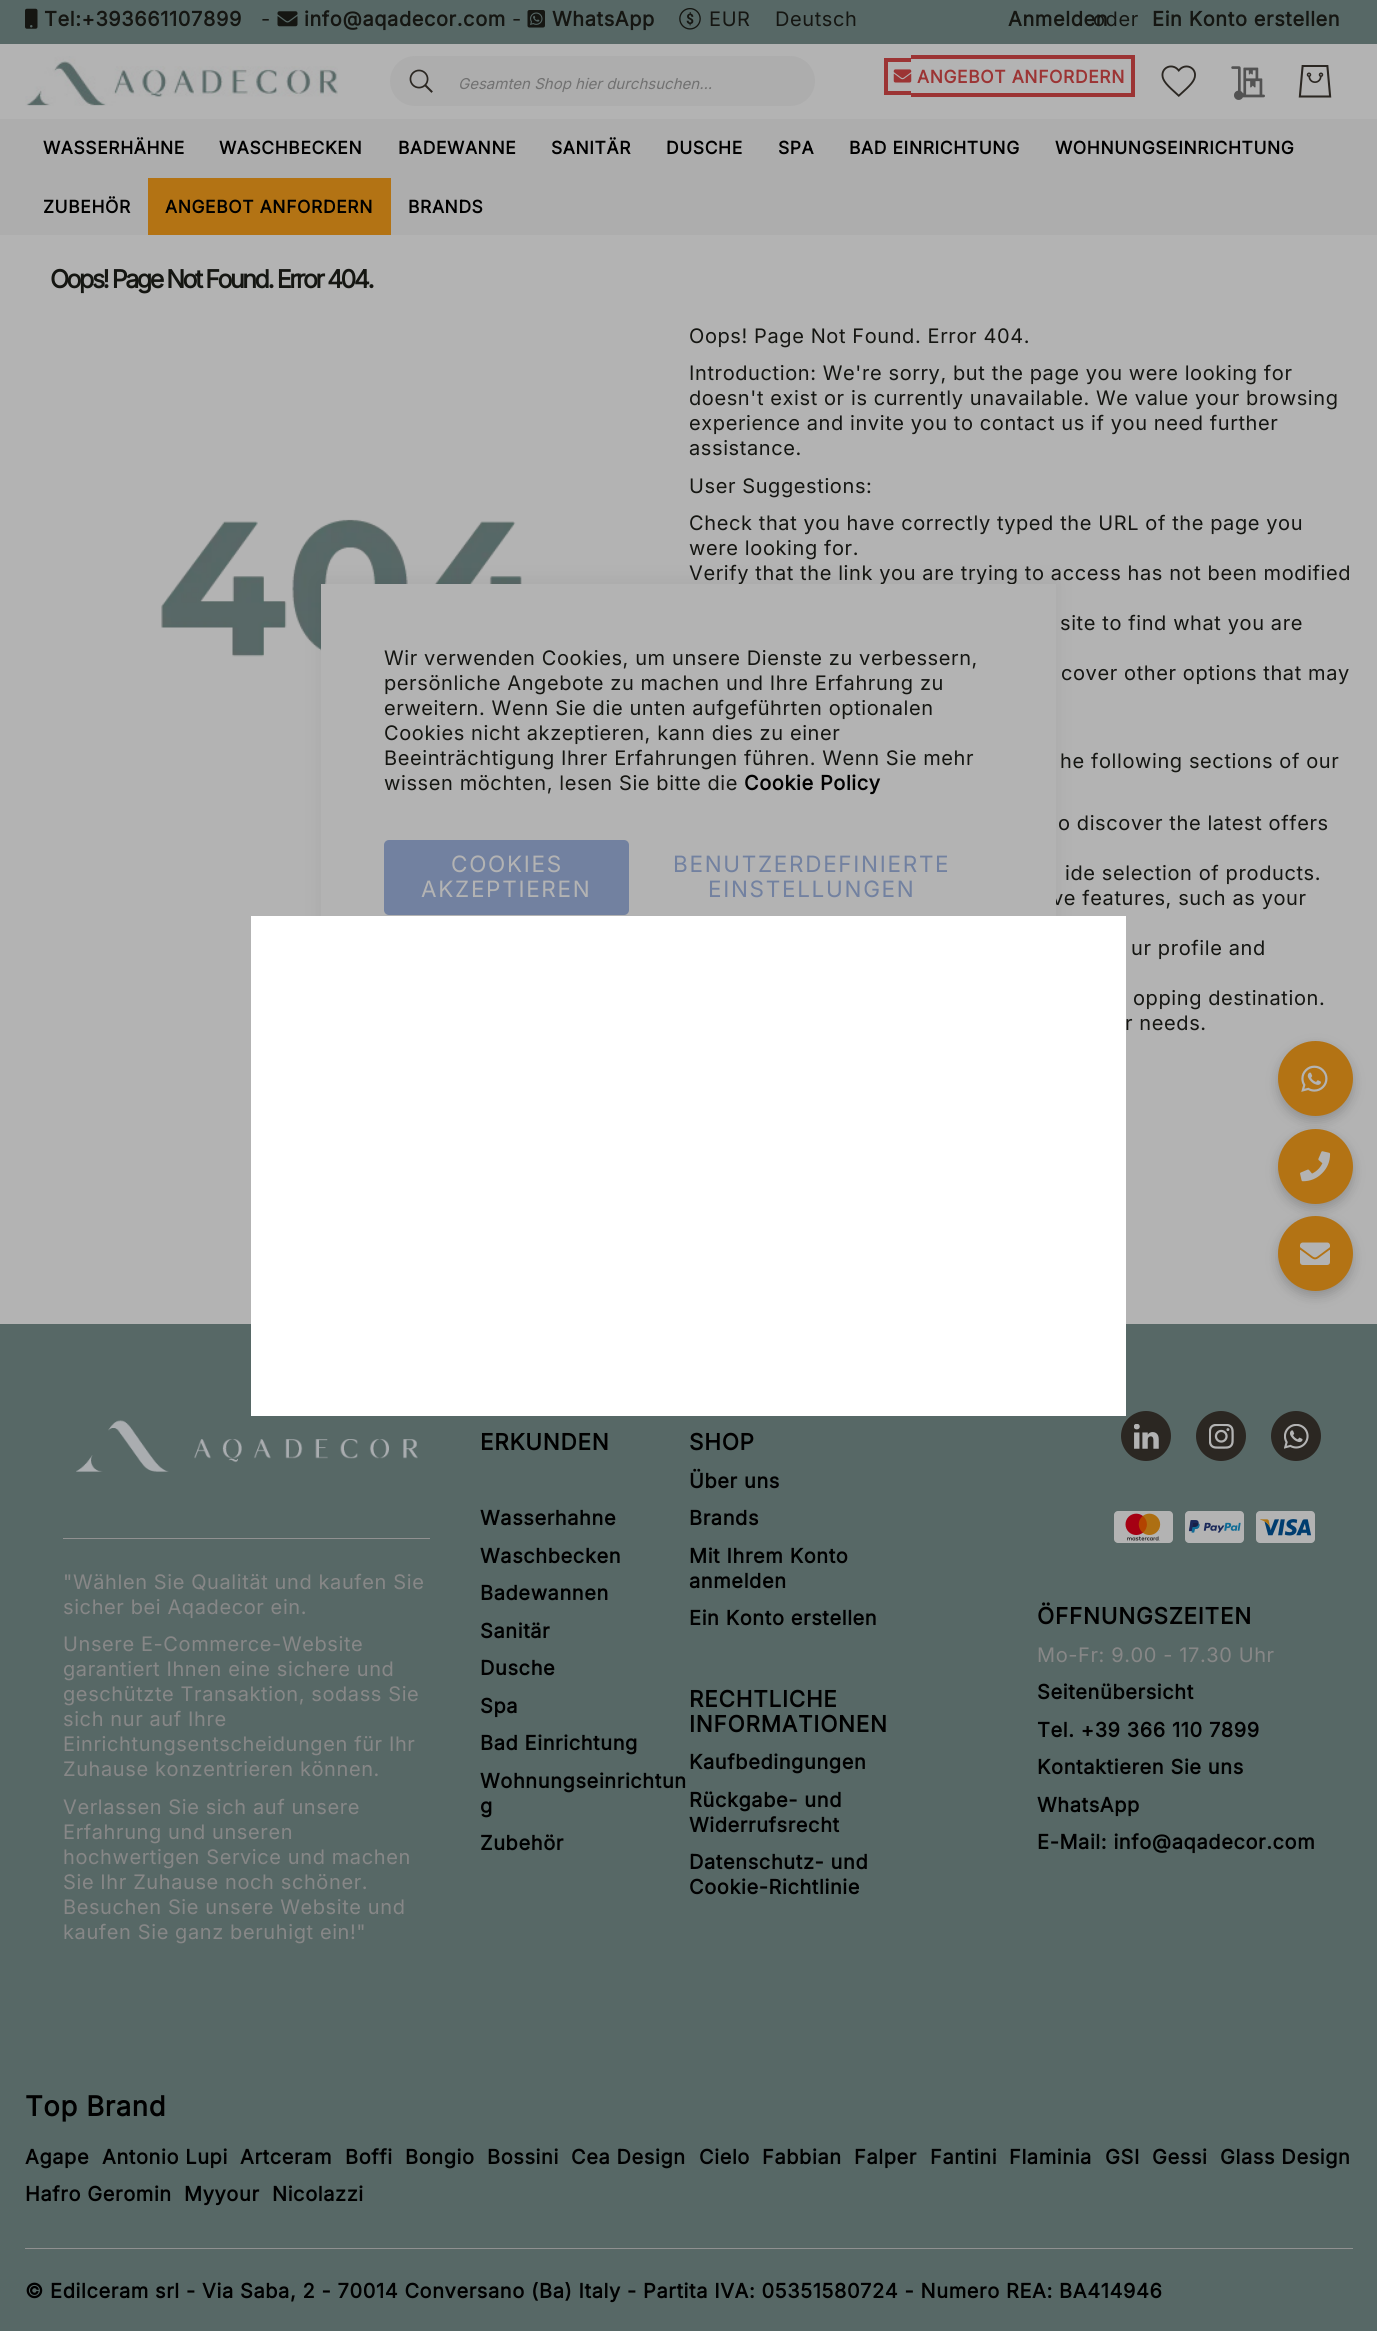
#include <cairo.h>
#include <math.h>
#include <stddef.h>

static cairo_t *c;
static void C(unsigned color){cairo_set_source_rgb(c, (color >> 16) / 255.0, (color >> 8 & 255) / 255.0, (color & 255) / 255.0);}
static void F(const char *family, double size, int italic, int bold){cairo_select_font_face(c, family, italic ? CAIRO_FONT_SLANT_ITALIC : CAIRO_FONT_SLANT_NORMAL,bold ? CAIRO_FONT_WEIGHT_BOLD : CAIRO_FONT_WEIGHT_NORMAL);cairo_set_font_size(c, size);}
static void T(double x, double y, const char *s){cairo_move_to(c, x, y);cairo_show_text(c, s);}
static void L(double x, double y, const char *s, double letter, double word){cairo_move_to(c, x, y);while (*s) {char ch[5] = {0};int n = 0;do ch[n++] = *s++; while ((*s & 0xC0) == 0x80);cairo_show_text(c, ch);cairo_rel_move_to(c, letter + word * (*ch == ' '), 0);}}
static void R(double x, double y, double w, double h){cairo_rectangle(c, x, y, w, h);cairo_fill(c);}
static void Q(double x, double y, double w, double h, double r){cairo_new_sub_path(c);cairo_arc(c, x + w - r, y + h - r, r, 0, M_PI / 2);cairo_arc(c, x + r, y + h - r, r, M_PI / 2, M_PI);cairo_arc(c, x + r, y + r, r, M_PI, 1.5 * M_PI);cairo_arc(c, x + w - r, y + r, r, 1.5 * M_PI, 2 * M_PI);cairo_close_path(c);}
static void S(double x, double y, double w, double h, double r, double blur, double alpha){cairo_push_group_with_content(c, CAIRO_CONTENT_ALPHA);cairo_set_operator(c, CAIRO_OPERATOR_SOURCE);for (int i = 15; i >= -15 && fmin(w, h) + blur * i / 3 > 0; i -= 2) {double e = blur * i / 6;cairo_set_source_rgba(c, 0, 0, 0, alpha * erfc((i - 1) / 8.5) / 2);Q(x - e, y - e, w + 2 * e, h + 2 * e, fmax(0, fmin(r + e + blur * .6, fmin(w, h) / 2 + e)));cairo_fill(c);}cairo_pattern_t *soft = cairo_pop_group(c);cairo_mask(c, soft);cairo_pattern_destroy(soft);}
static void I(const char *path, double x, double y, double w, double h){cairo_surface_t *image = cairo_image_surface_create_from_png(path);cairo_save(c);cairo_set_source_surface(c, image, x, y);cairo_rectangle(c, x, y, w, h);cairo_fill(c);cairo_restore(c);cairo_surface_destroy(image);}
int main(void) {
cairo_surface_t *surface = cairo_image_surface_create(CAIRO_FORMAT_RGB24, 1377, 2331);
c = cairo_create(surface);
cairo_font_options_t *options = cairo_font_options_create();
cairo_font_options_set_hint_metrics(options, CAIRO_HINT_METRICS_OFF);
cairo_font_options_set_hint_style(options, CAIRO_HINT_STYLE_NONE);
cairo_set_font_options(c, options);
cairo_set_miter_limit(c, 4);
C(0xb3b3b3);
cairo_paint(c);
C(0x576866);
R(0,0,1377,44);
I("1.png",25,8,13,21);
F("Inter",20,0,1);
C(0x151612);
L(44,26,"Tel:+393661107899",.6,0);
F("Inter",20,0,0);
L(261,26,"-",.6,0);
I("2.png",277,11,21,16);
F("Inter",20,0,1);
L(304,26,"info@aqadecor.com",.6,0);
F("Inter",20,0,0);
L(512,26,"-",.6,0);
I("3.png",527,10,18,18);
F("Inter",20,0,1);
L(552,26,"WhatsApp",.6,0);
I("4.png",679,8,22,22);
F("Inter",20,0,0);
L(709,26,"EUR",.6,0);
L(775,26,"Deutsch",.6,0);
F("Inter",20,0,1);
L(1008,26,"Anmelden",.6,0);
F("Inter",20,0,0);
L(1093,26,"oder",.6,0);
F("Inter",20,0,1);
L(1152,26,"Ein Konto erstellen",.6,0);
I("5.png",25,56,313,50);
C(0xadadad);
Q(390,56,425,50,25);
cairo_fill(c);
I("6.png",409,69,24,24);
F("Inter",15,1,0);
C(0x717171);
T(458,89,"Gesamten Shop hier durchsuchen...");
C(0x9c3434);
R(884,58,27,4);
R(884,91,27,4);
R(884,58,4,37);
R(911,55,224,4);
R(1131,55,4,41);
R(911,93,224,4);
I("7.png",893,69,19,14);
F("Inter",17.5,0,1);
L(917,83,"ANGEBOT ANFORDERN",.6,0);
I("8.png",1161,65,35,32);
I("9.png",1231,66,34,34);
I("10.png",1298,65,34,33);
C(0xadadad);
R(0,119,1377,116);
C(0x000000);
L(43,154,"WASSERHÄHNE",.6,0);
L(219,154,"WASCHBECKEN",.6,0);
L(398,154,"BADEWANNE",.6,0);
L(551,154,"SANITÄR",.6,0);
L(666,154,"DUSCHE",.6,0);
L(778,154,"SPA",.6,0);
L(849,154,"BAD EINRICHTUNG",.6,0);
L(1055,154,"WOHNUNGSEINRICHTUNG",.6,0);
L(43,213,"ZUBEHÖR",.6,0);
C(0xb37314);
R(148,178,243,57);
C(0x000000);
L(165,213,"ANGEBOT ANFORDERN",.6,0);
L(408,213,"BRANDS",.6,0);
F("Inter",25,0,1);
C(0x151612);
L(50,288,"Oops! Page Not Found. Error 404.",-2.5,0);
I("11.png",161,519,361,138);
F("Inter",20,0,0);
L(689,343,"Oops! Page Not Found. Error 404.",.6,0);
L(689,380,"Introduction: We're sorry, but the page you were looking for",.6,0);
L(689,405,"doesn't exist or is currently unavailable. We value your browsing",.6,0);
L(689,430,"experience and invite you to contact us if you need further",.6,0);
L(689,455,"assistance.",.6,0);
L(689,493,"User Suggestions:",.6,0);
L(689,530,"Check that you have correctly typed the URL of the page you",.6,0);
L(689,555,"were looking for.",.6,0);
L(689,580,"Verify that the link you are trying to access has not been modified",.6,0);
L(1060,630,"site to find what you are",.6,0);
L(1061,680,"cover other options that may",.6,0);
L(1060,768,"he following sections of our",.6,0);
L(1058,830,"o discover the latest offers",.6,0);
L(1065,880,"ide selection of products.",.6,0);
L(1052,905,"ve features, such as your",.6,0);
L(1131,955,"ur profile and",.6,0);
L(1133,1005,"opping destination.",.6,0);
L(1125,1030,"r needs.",.6,0);
C(0x576866);
R(0,1324,1377,1007);
I("12.png",76,1420,342,52);
C(0x909090);
R(63,1538,367,1);
C(0x878787);
L(63,1589,"\"Wählen Sie Qualität und kaufen Sie",.6,0);
L(63,1614,"sicher bei Aqadecor ein.",.6,0);
L(63,1651,"Unsere E-Commerce-Website",.6,0);
L(63,1676,"garantiert Ihnen eine sichere und",.6,0);
L(63,1701,"geschützte Transaktion, sodass Sie",.6,0);
L(63,1726,"sich nur auf Ihre",.6,0);
L(63,1751,"Einrichtungsentscheidungen für Ihr",.6,0);
L(63,1776,"Zuhause konzentrieren können.",.6,0);
L(63,1814,"Verlassen Sie sich auf unsere",.6,0);
L(63,1839,"Erfahrung und unseren",.6,0);
L(63,1864,"hochwertigen Service und machen",.6,0);
L(63,1889,"Sie Ihr Zuhause noch schöner.",.6,0);
L(63,1914,"Besuchen Sie unsere Website und",.6,0);
L(63,1939,"kaufen Sie ganz beruhigt ein!\"",.6,0);
F("Inter",22.5,0,1);
C(0x000000);
L(480,1450,"ERKUNDEN",.75,0);
F("Inter",20,0,1);
L(480,1525,"Wasserhahne",.6,0);
L(480,1563,"Waschbecken",.6,0);
L(480,1600,"Badewannen",.6,0);
L(480,1638,"Sanitär",.6,0);
L(480,1675,"Dusche",.6,0);
L(480,1713,"Spa",.6,0);
L(480,1750,"Bad Einrichtung",.6,0);
L(480,1788,"Wohnungseinrichtun",.6,0);
L(480,1813,"g",.6,0);
L(480,1850,"Zubehör",.6,0);
F("Inter",22.5,0,1);
L(689,1450,"SHOP",.75,0);
F("Inter",20,0,1);
L(689,1488,"Über uns",.6,0);
L(689,1525,"Brands",.6,0);
L(689,1563,"Mit Ihrem Konto",.6,0);
L(689,1588,"anmelden",.6,0);
L(689,1625,"Ein Konto erstellen",.6,0);
F("Inter",22.5,0,1);
L(689,1707,"RECHTLICHE",.75,0);
L(689,1732,"INFORMATIONEN",.75,0);
F("Inter",20,0,1);
L(689,1769,"Kaufbedingungen",.6,0);
L(689,1807,"Rückgabe- und",.6,0);
L(689,1832,"Widerrufsrecht",.6,0);
L(689,1869,"Datenschutz- und",.6,0);
L(689,1894,"Cookie-Richtlinie",.6,0);
C(0x2b2722);
cairo_new_path(c);
cairo_arc(c,1146,1436,25,0,2 * M_PI);
cairo_fill(c);
I("13.png",1134,1424,25,25);
cairo_arc(c,1221,1436,25,0,2 * M_PI);
cairo_fill(c);
I("14.png",1209,1424,25,25);
cairo_arc(c,1296,1436,25,0,2 * M_PI);
cairo_fill(c);
I("15.png",1284,1424,25,25);
I("16.png",1114,1511,59,32);
I("17.png",1185,1511,59,32);
I("18.png",1256,1511,59,32);
F("Inter",22.5,0,1);
C(0x000000);
L(1037,1624,"ÖFFNUNGSZEITEN",.75,0);
F("Inter",20,0,0);
C(0x878787);
L(1037,1662,"Mo-Fr: 9.00 - 17.30 Uhr",.6,0);
F("Inter",20,0,1);
C(0x000000);
L(1037,1699,"Seitenübersicht",.6,0);
L(1037,1737,"Tel. +39 366 110 7899",.6,0);
L(1037,1774,"Kontaktieren Sie uns",.6,0);
L(1037,1812,"WhatsApp",.6,0);
L(1037,1849,"E-Mail: info@aqadecor.com",.6,0);
F("Inter",27.5,0,1);
L(25,2116,"Top Brand",.6,0);
F("Inter",20,0,1);
L(25,2164,"Agape",.6,0);
L(102,2164,"Antonio Lupi",.6,0);
L(240,2164,"Artceram",.6,0);
L(345,2164,"Boffi",.6,0);
L(405,2164,"Bongio",.6,0);
L(487,2164,"Bossini",.6,0);
L(571,2164,"Cea Design",.6,0);
L(699,2164,"Cielo",.6,0);
L(762,2164,"Fabbian",.6,0);
L(854,2164,"Falper",.6,0);
L(930,2164,"Fantini",.6,0);
L(1009,2164,"Flaminia",.6,0);
L(1105,2164,"GSI",.6,0);
L(1152,2164,"Gessi",.6,0);
L(1220,2164,"Glass Design",.6,0);
L(25,2201,"Hafro Geromin",.6,0);
L(184,2201,"Myyour",.6,0);
L(272,2201,"Nicolazzi",.6,0);
C(0x000000);
S(1278,1046,75,75,37.5,6,.2);
C(0xb37314);
cairo_arc(c,1315.5,1078.5,37.5,0,2 * M_PI);
cairo_fill(c);
I("19.png",1301,1065,27,27);
C(0x000000);
S(1278,1134,75,75,37.5,6,.2);
C(0xb37314);
cairo_arc(c,1315.5,1166.5,37.5,0,2 * M_PI);
cairo_fill(c);
I("20.png",1300,1151,31,31);
C(0x000000);
S(1278,1221,75,75,37.5,6,.2);
C(0xb37314);
cairo_arc(c,1315.5,1253.5,37.5,0,2 * M_PI);
cairo_fill(c);
I("21.png",1300,1242,30,23);
C(0x909090);
R(25,2248,1328,1);
C(0x000000);
L(25,2298,"© Edilceram srl - Via Saba, 2 - 70014 Conversano (Ba) Italy - Partita IVA: 05351580724 - Numero REA: BA414946",.6,0);
C(0x000000);
S(321,581,735,400,0,11,.06);
C(0xb3b3b3);
R(321,584,735,332);
F("Inter",20,0,0);
C(0x151612);
L(384,665,"Wir verwenden Cookies, um unsere Dienste zu verbessern,",.6,0);
L(384,690,"persönliche Angebote zu machen und Ihre Erfahrung zu",.6,0);
L(384,715,"erweitern. Wenn Sie die unten aufgeführten optionalen",.6,0);
L(384,740,"Cookies nicht akzeptieren, kann dies zu einer",.6,0);
L(384,765,"Beeinträchtigung Ihrer Erfahrungen führen. Wenn Sie mehr",.6,0);
L(384,790,"wissen möchten, lesen Sie bitte die",.6,0);
F("Inter",20,0,1);
C(0x000000);
L(744,790,"Cookie Policy",.6,0);
C(0x7281a0);
Q(384,840,245,75,5);
cairo_fill(c);
F("Inter",22.5,0,0);
C(0xb3b3b3);
L(451,872,"COOKIES",1.7,0);
L(421,897,"AKZEPTIEREN",1.7,0);
C(0x7281a0);
L(673,872,"BENUTZERDEFINIERTE",1.7,0);
L(708,897,"EINSTELLUNGEN",1.7,0);
C(0xffffff);
R(251,916,875,500);
cairo_surface_write_to_png(surface, "o.png");
cairo_font_options_destroy(options);
cairo_destroy(c);
cairo_surface_destroy(surface);
return 0;
}
